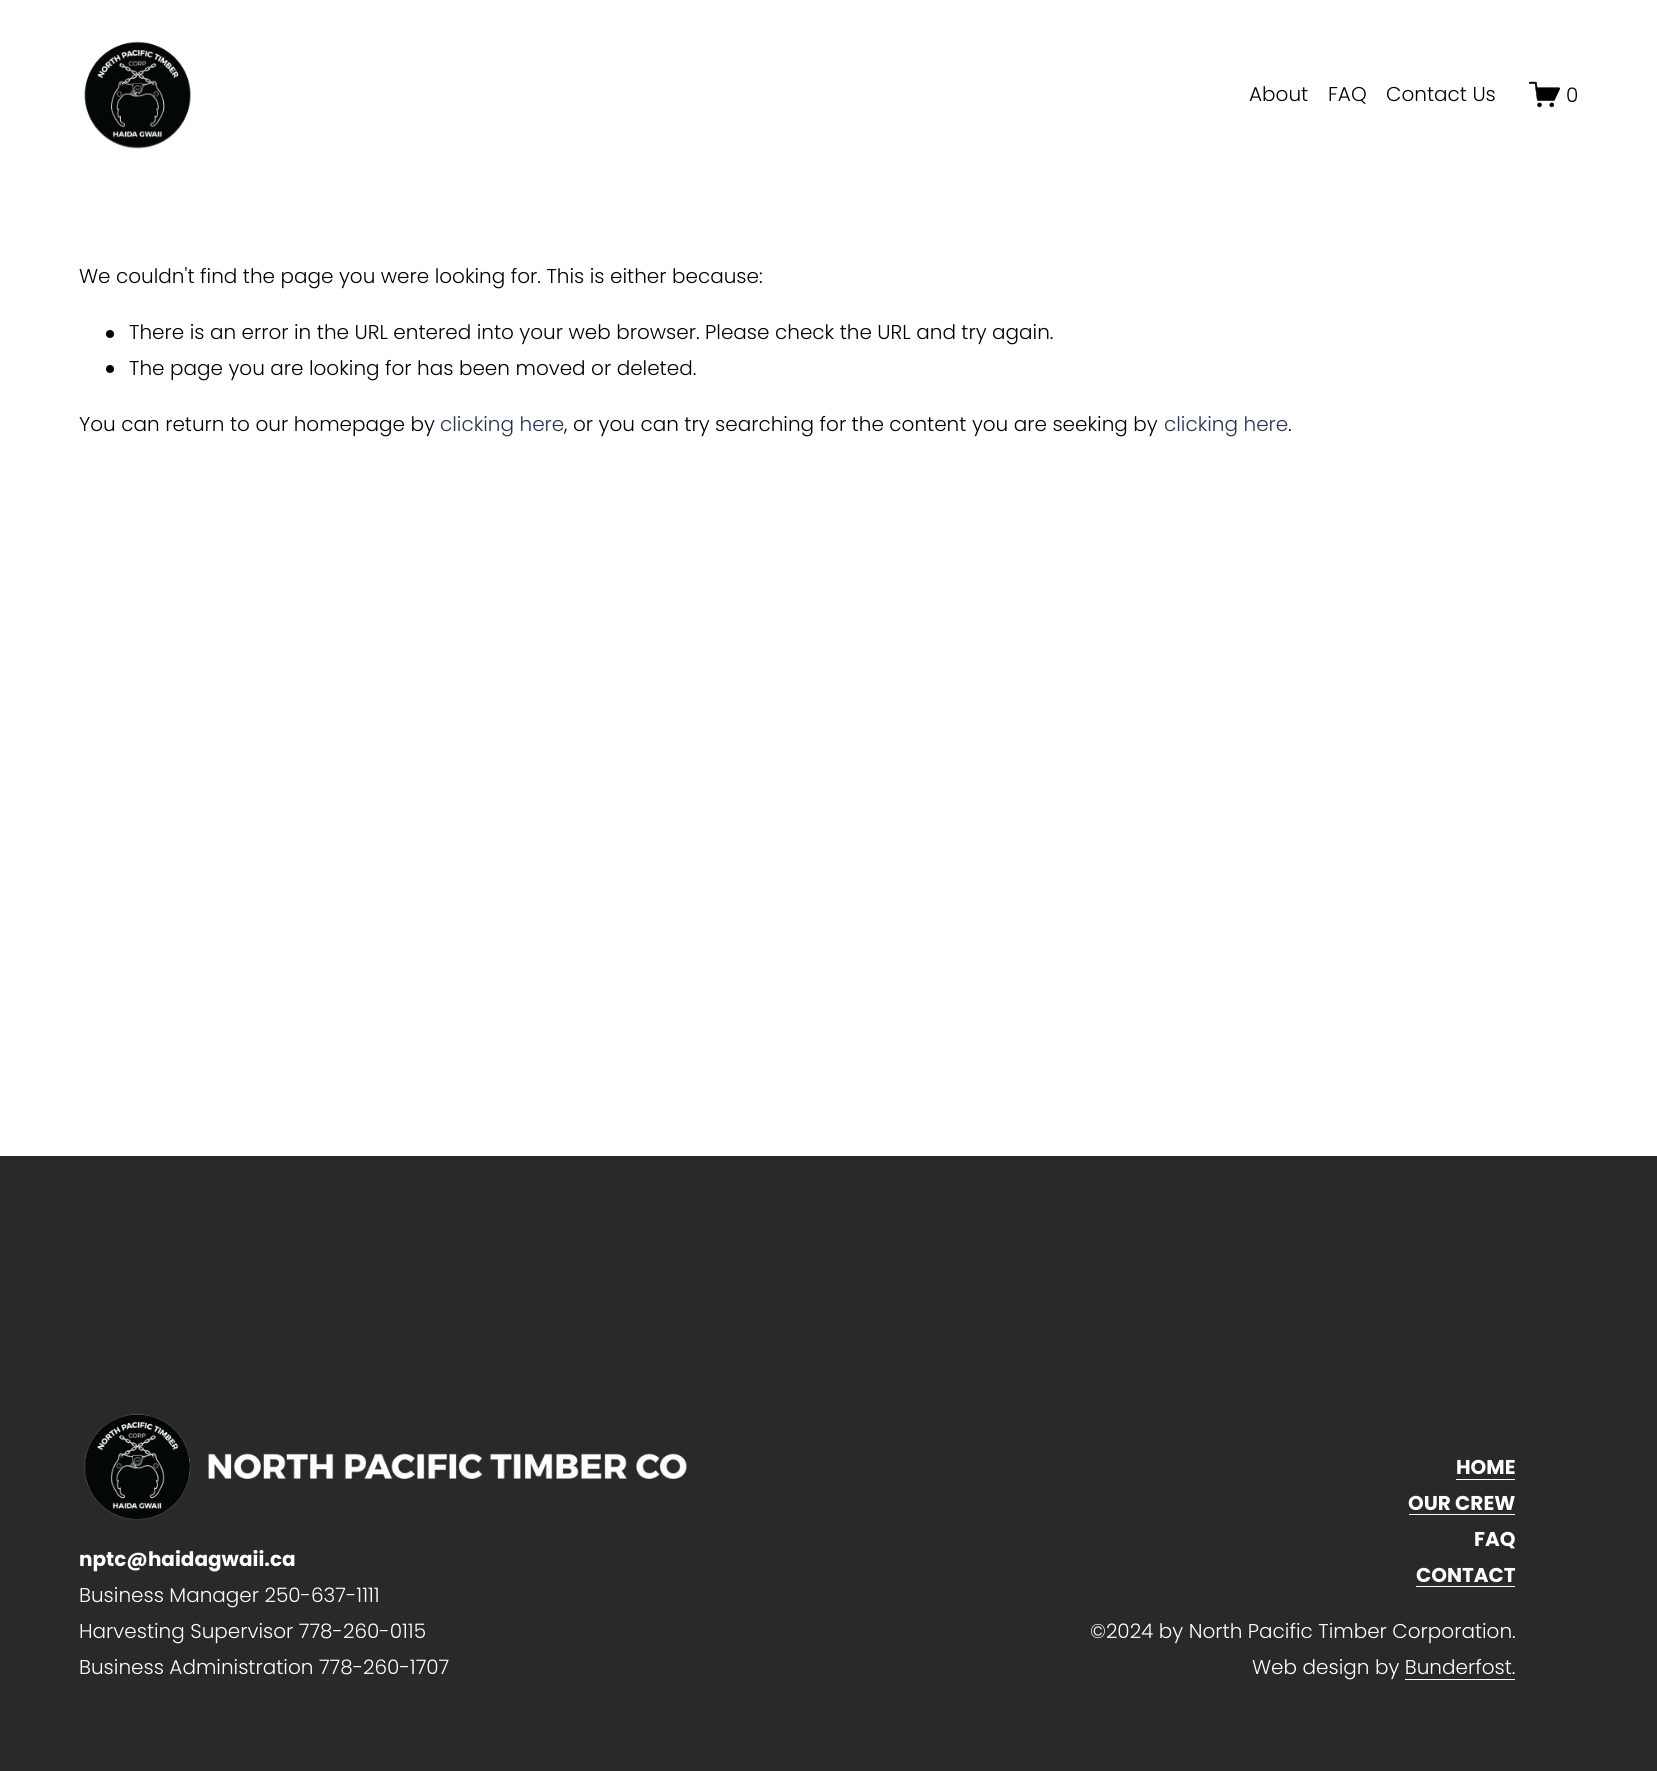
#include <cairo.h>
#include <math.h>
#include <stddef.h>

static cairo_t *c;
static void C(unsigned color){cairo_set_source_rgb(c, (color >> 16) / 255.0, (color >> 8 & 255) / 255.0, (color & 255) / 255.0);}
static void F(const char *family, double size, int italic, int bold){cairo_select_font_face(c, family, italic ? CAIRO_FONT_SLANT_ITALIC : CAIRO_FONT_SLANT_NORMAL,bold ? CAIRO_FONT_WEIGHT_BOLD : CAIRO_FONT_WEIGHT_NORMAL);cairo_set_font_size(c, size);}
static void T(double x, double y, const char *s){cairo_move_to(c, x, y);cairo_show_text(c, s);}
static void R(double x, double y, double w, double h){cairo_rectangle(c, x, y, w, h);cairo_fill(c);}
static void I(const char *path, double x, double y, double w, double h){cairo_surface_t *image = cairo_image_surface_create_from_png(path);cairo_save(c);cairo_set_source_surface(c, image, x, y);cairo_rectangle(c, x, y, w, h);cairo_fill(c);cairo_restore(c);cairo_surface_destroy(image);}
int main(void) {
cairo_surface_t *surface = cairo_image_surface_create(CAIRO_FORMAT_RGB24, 1657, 1771);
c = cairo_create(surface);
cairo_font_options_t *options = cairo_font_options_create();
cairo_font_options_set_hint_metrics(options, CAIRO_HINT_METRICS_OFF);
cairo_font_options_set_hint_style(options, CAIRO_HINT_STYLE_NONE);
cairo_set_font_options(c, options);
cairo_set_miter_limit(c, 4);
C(0xffffff);
cairo_paint(c);
I("1.png",84,41,107,108);
F("Poppins Light",20,0,0);
C(0x000000);
T(1249,101,"About");
T(1328,101,"FAQ");
T(1386,101,"Contact Us");
I("2.png",1529,81,31,27);
T(1566,102,"0");
T(79,283,"We couldn't find the page you were looking for. This is either because:");
cairo_new_path(c);
cairo_arc(c,110,334,4,0,2 * M_PI);
cairo_fill(c);
T(129,339,"There is an error in the URL entered into your web browser. Please check the URL and try again.");
cairo_new_path(c);
cairo_arc(c,110,369,4,0,2 * M_PI);
cairo_fill(c);
T(129,375,"The page you are looking for has been moved or deleted.");
T(79,431,"You can return to our homepage by");
C(0x253551);
T(440,431,"clicking here");
C(0x000000);
T(564,431,", or you can try searching for the content you are seeking by");
C(0x253551);
T(1164,431,"clicking here");
C(0x000000);
T(1288,431,".");
C(0x2a2829);
R(0,1156,1657,615);
I("3.png",84,1414,603,106);
F("Poppins",20,0,1);
C(0xffffff);
T(1456,1474,"HOME");
R(1456,1479,59,1);
T(1408,1510,"OUR CREW");
R(1409,1514,106,1);
T(1474,1546,"FAQ");
T(1416,1582,"CONTACT");
R(1416,1586,99,1);
F("Poppins Light",20,0,0);
T(1090,1638,"©2024 by North Pacific Timber Corporation.");
T(1252,1674,"Web design by Bunderfost.");
R(1405,1679,110,1);
F("Poppins",20,0,1);
T(79,1566,"nptc@haidagwaii.ca");
F("Poppins Light",20,0,0);
T(79,1602,"Business Manager 250-637-1111");
T(79,1638,"Harvesting Supervisor 778-260-0115");
T(79,1674,"Business Administration 778-260-1707");
cairo_surface_write_to_png(surface, "o.png");
cairo_font_options_destroy(options);
cairo_destroy(c);
cairo_surface_destroy(surface);
return 0;
}
